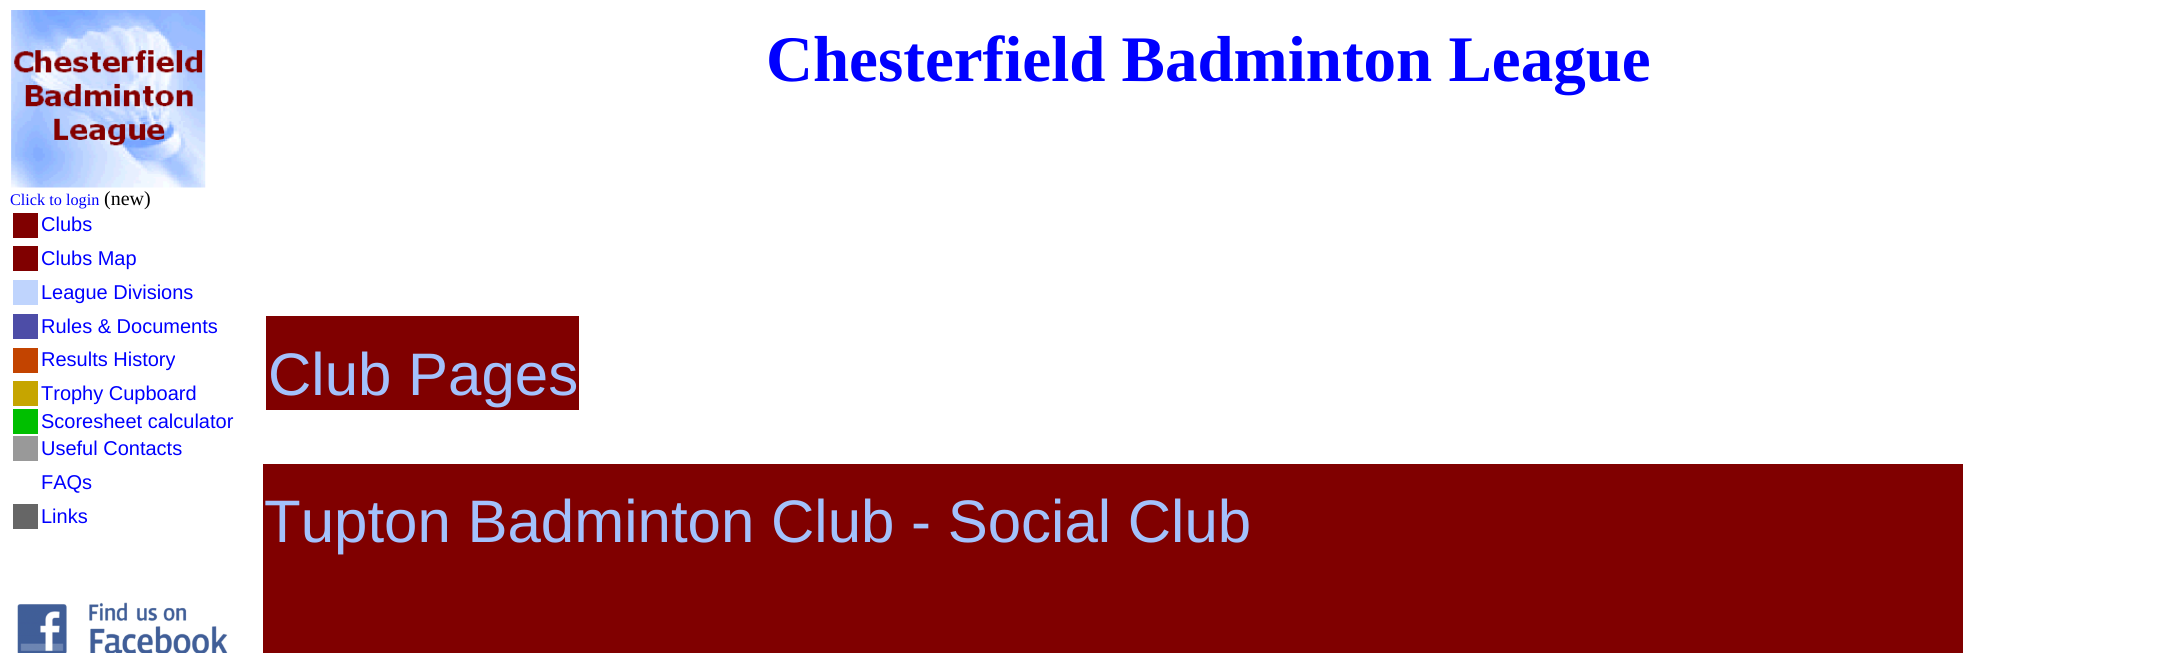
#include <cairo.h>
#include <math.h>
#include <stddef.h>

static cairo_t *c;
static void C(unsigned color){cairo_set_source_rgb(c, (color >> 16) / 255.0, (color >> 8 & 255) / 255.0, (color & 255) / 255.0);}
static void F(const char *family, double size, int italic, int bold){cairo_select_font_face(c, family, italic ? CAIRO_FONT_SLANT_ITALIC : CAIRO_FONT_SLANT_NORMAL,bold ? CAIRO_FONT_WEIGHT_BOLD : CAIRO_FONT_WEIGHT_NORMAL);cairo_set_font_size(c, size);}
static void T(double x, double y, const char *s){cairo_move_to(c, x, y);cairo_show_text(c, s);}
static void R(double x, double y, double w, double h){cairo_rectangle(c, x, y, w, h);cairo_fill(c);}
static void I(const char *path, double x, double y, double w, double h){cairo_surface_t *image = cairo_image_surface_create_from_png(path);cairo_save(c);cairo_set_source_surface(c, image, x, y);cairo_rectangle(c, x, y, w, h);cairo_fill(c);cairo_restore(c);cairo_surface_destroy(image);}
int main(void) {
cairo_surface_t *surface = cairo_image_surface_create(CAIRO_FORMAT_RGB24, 2165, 653);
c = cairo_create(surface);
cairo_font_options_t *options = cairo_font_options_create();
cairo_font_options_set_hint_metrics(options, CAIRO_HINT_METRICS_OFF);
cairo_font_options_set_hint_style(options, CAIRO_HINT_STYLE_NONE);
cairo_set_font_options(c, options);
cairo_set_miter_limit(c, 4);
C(0xffffff);
cairo_paint(c);
I("1.png",11,10,195,178);
F("Liberation Serif",16.25,0,0);
C(0x0000ff);
T(10,205,"Click to login");
F("Liberation Serif",20,0,0);
C(0x000000);
T(104,205,"(new)");
C(0x800000);
R(13,213,25,25);
F("Liberation Sans",20,0,0);
C(0x0000ff);
T(41,231,"Clubs");
C(0x800000);
R(13,246,25,25);
C(0x0000ff);
T(41,265,"Clubs Map");
C(0xbfd4fd);
R(13,280,25,25);
C(0x0000ff);
T(41,299,"League Divisions");
C(0x4d4da7);
R(13,314,25,25);
C(0x0000ff);
T(41,333,"Rules & Documents");
C(0xc34400);
R(13,348,25,25);
C(0x0000ff);
T(41,366,"Results History");
C(0xc6a500);
R(13,381,25,25);
C(0x0000ff);
T(41,400,"Trophy Cupboard");
C(0x00bf00);
R(13,409,25,25);
C(0x0000ff);
T(41,428,"Scoresheet calculator");
C(0x999999);
R(13,436,25,25);
C(0x0000ff);
T(41,455,"Useful Contacts");
T(41,489,"FAQs");
C(0x666666);
R(13,504,25,25);
C(0x0000ff);
T(41,523,"Links");
I("2.png",17,602,211,51);
F("Liberation Serif",65,0,1);
T(766,81,"Chesterfield Badminton League");
C(0x800000);
R(266,316,313,94);
F("Liberation Sans",60,0,0);
C(0xa3c1fc);
T(268,395,"Club Pages");
C(0x800000);
R(263,464,1700,189);
C(0xa3c1fc);
T(264,542,"Tupton Badminton Club - Social Club");
cairo_surface_write_to_png(surface, "o.png");
cairo_font_options_destroy(options);
cairo_destroy(c);
cairo_surface_destroy(surface);
return 0;
}
